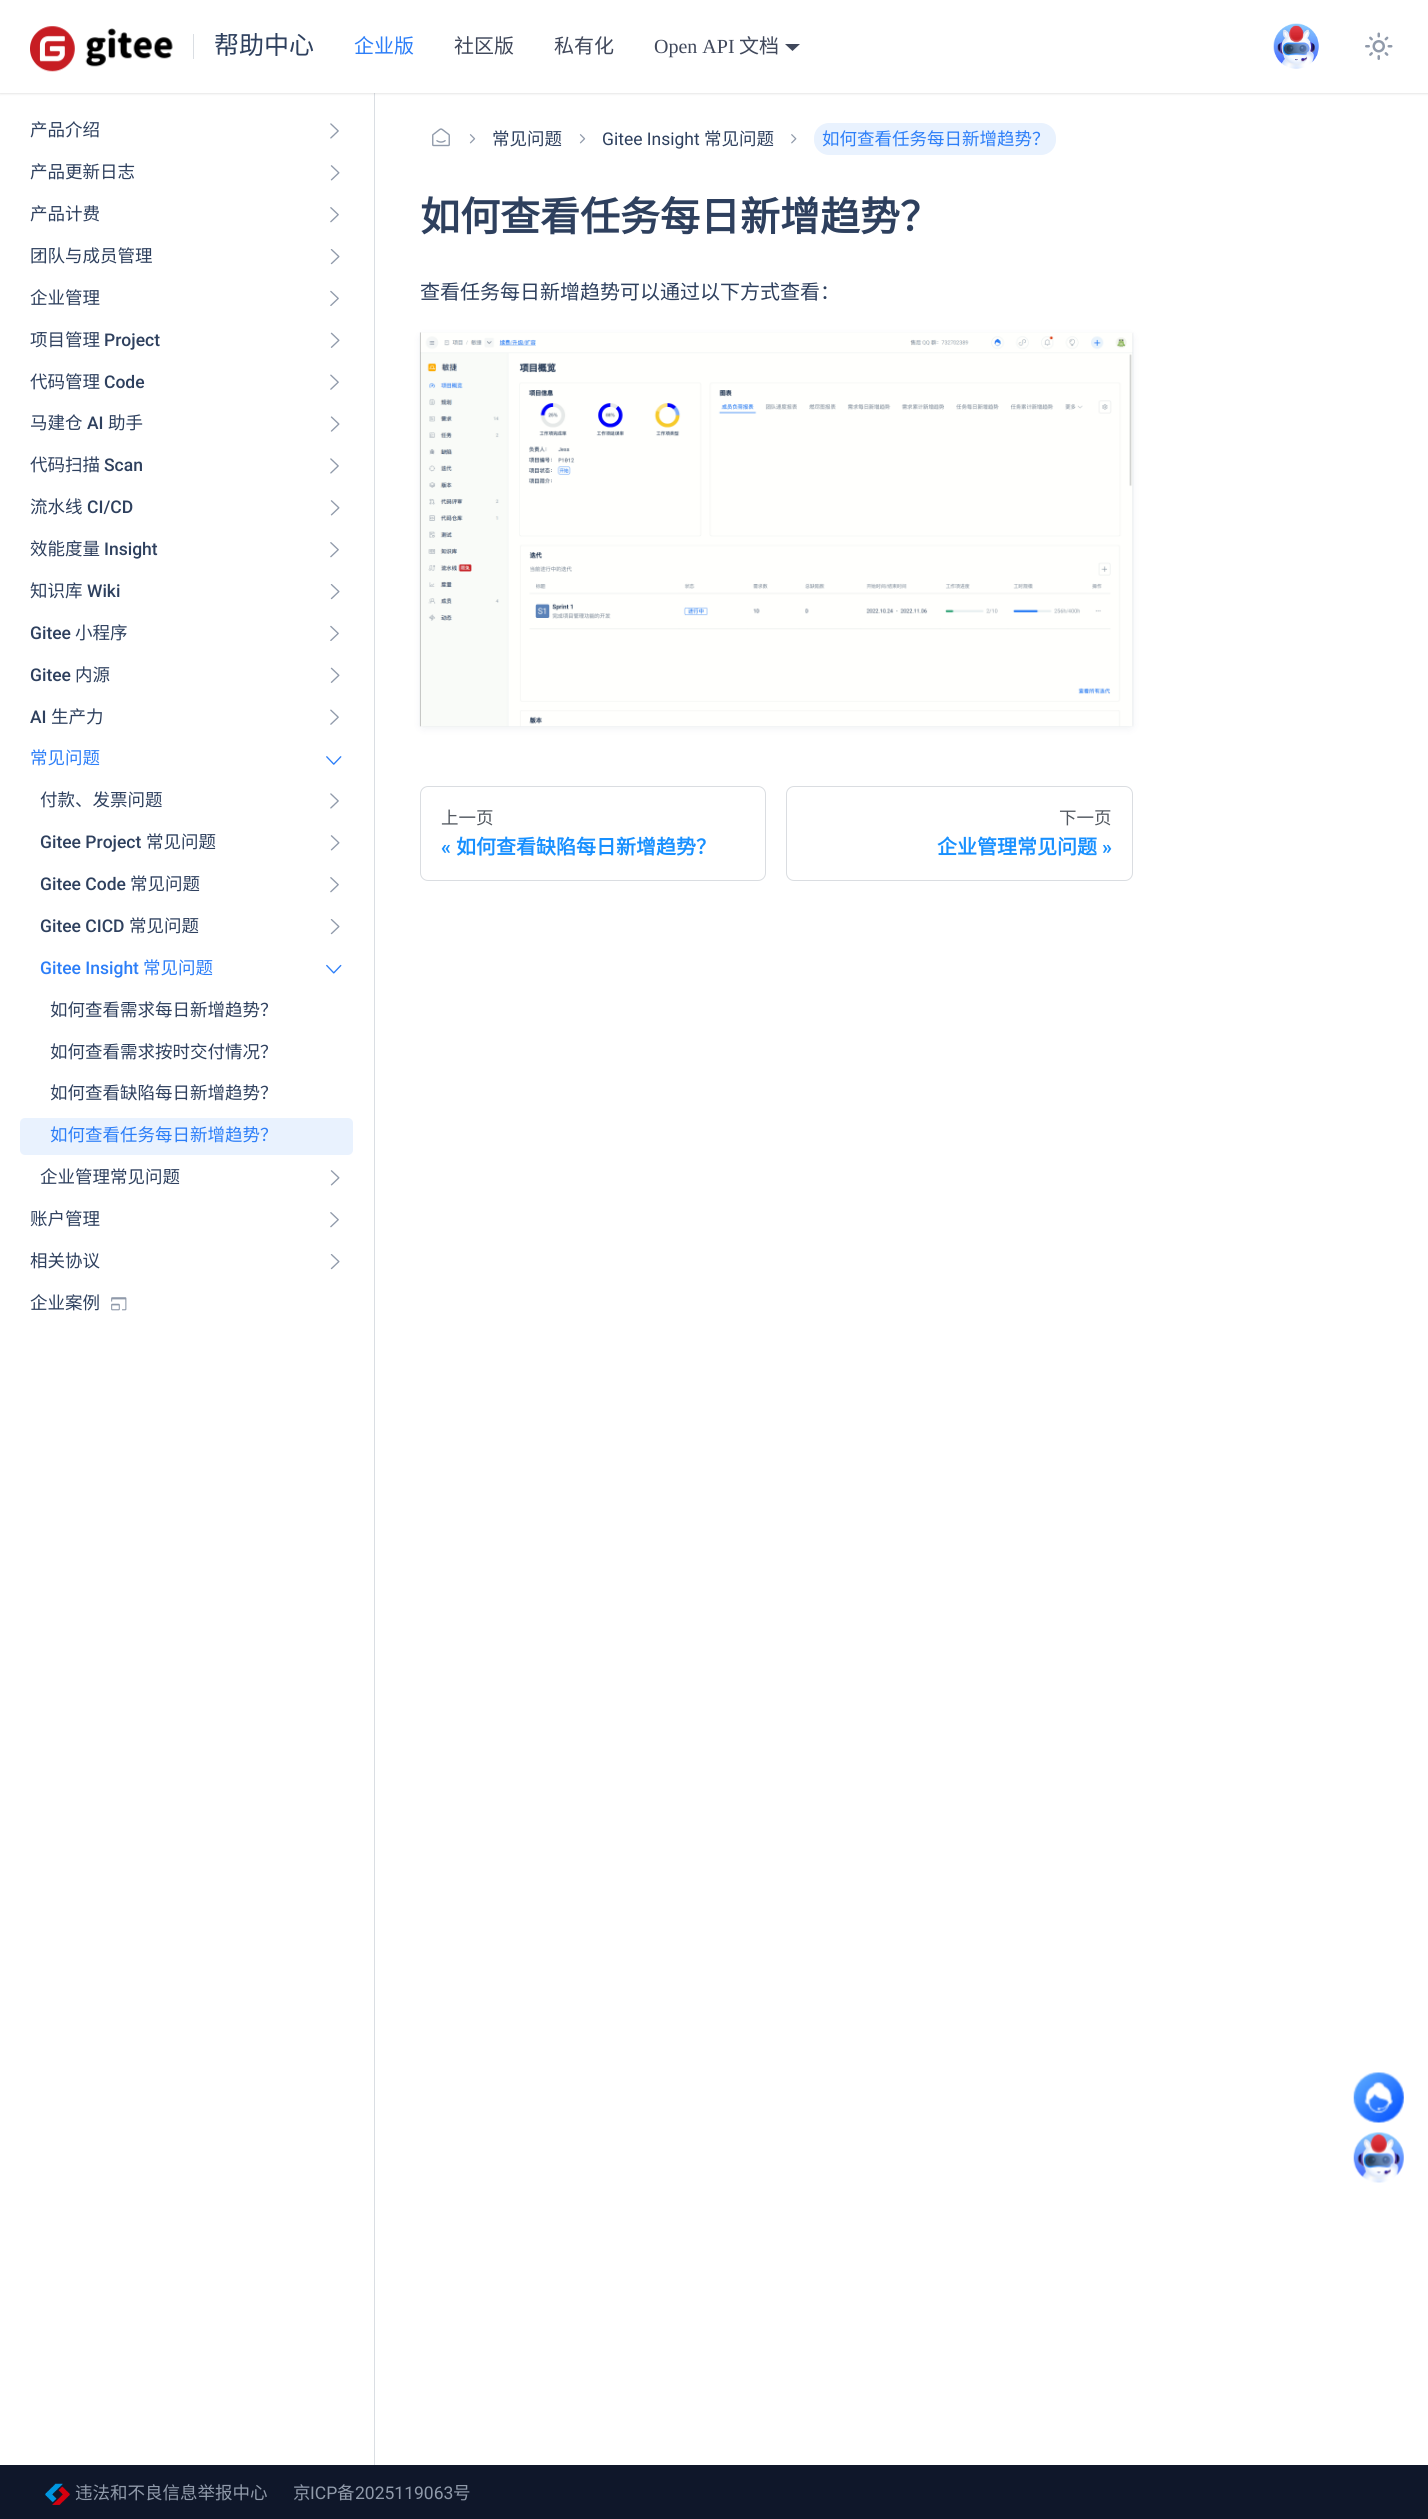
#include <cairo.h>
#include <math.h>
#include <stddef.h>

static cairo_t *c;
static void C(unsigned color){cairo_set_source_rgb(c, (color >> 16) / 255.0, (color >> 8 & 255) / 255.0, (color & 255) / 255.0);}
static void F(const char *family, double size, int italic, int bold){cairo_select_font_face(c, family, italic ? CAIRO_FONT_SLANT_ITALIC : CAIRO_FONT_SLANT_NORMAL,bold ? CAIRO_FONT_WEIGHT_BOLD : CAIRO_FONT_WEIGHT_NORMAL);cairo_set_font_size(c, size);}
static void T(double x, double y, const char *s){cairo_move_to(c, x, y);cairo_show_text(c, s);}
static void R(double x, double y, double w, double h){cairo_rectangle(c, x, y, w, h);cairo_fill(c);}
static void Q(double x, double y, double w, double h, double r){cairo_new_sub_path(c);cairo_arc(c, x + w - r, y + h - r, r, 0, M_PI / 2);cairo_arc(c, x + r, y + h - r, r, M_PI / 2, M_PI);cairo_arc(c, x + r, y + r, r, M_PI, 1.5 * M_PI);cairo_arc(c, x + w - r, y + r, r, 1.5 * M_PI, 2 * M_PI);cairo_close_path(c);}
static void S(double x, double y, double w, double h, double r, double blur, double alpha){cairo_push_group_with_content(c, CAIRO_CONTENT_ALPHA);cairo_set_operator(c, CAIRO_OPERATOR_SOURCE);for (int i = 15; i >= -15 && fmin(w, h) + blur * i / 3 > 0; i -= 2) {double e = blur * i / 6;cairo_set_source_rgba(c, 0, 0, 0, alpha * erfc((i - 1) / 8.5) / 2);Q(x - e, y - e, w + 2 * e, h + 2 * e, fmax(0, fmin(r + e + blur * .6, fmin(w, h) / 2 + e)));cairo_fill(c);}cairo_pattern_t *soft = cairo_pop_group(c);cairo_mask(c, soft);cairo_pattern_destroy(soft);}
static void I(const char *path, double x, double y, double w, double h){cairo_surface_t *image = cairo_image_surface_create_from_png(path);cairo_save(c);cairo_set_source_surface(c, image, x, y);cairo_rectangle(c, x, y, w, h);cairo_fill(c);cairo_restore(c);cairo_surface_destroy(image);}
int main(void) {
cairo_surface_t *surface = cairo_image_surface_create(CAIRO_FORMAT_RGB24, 1428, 2519);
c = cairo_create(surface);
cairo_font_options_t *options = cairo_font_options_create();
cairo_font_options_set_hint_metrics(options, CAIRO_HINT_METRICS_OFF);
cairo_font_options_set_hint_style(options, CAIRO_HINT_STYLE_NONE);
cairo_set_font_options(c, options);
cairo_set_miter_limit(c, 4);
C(0xffffff);
cairo_paint(c);
C(0xdadee3);
R(374,93,1,2372);
C(0x000000);
S(0,1,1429,93,0,1,.1);
C(0xffffff);
R(0,0,1428,93);
I("1.png",30,26,143,46);
C(0xdadee3);
R(193,34,1,25);
F("Noto Sans CJK SC",25,0,0);
C(0x2e405e);
T(214,54,"帮助中心");
F("Noto Sans CJK SC",20,0,0);
C(0x2c7ef8);
T(354,53,"企业版");
C(0x40485b);
T(454,53,"社区版");
T(554,53,"私有化");
F("Liberation Serif",20,0,0);
T(654,53,"Open API");
F("Noto Sans CJK SC",20,0,0);
T(739,53,"文档");
cairo_new_path(c);
cairo_move_to(c,785,44);
cairo_line_to(c,800,44);
cairo_line_to(c,792.5,51);
cairo_close_path(c);
cairo_fill(c);
I("2.png",1273,23,46,46);
I("3.png",1365,32,28,28);
F("Noto Sans CJK SC",17.5,0,0);
C(0x2e405e);
T(30,136,"产品介绍");
I("4.png",330,123,9,16);
T(30,178,"产品更新日志");
I("5.png",330,165,10,16);
T(30,220,"产品计费");
I("6.png",330,207,9,16);
T(30,262,"团队与成员管理");
I("7.png",330,249,10,16);
T(30,304,"企业管理");
I("8.png",330,290,9,16);
T(30,346,"项目管理");
F("Roboto Medium",17.5,0,0);
T(104,346,"Project");
I("9.png",330,332,10,16);
F("Noto Sans CJK SC",17.5,0,0);
T(30,388,"代码管理");
F("Roboto Medium",17.5,0,0);
T(104,388,"Code");
I("10.png",330,374,9,16);
F("Noto Sans CJK SC",17.5,0,0);
T(30,429,"马建仓");
F("Roboto Medium",17.5,0,0);
T(87,429,"AI");
F("Noto Sans CJK SC",17.5,0,0);
T(108,429,"助手");
I("11.png",330,416,10,16);
T(30,471,"代码扫描");
F("Roboto Medium",17.5,0,0);
T(104,471,"Scan");
I("4.png",330,458,9,16);
F("Noto Sans CJK SC",17.5,0,0);
T(30,513,"流水线");
F("Roboto Medium",17.5,0,0);
T(87,513,"CI/CD");
I("5.png",330,500,10,16);
F("Noto Sans CJK SC",17.5,0,0);
T(30,555,"效能度量");
F("Roboto Medium",17.5,0,0);
T(104,555,"Insight");
I("6.png",330,542,9,16);
F("Noto Sans CJK SC",17.5,0,0);
T(30,597,"知识库");
F("Roboto Medium",17.5,0,0);
T(87,597,"Wiki");
I("7.png",330,584,10,16);
T(30,639,"Gitee");
F("Noto Sans CJK SC",17.5,0,0);
T(75,639,"小程序");
I("8.png",330,625,9,16);
F("Roboto Medium",17.5,0,0);
T(30,681,"Gitee");
F("Noto Sans CJK SC",17.5,0,0);
T(75,681,"内源");
I("9.png",330,667,10,16);
F("Roboto Medium",17.5,0,0);
T(30,723,"AI");
F("Noto Sans CJK SC",17.5,0,0);
T(51,723,"生产力");
I("10.png",330,709,9,16);
C(0x2c7ef8);
T(30,764,"常见问题");
I("12.png",326,756,16,9);
C(0x2e405e);
T(40,806,"付款、发票问题");
I("4.png",330,793,9,16);
F("Roboto Medium",17.5,0,0);
T(40,848,"Gitee Project");
F("Noto Sans CJK SC",17.5,0,0);
T(146,848,"常见问题");
I("5.png",330,835,10,16);
F("Roboto Medium",17.5,0,0);
T(40,890,"Gitee Code");
F("Noto Sans CJK SC",17.5,0,0);
T(130,890,"常见问题");
I("6.png",330,877,9,16);
F("Roboto Medium",17.5,0,0);
T(40,932,"Gitee CICD");
F("Noto Sans CJK SC",17.5,0,0);
T(129,932,"常见问题");
I("7.png",330,919,10,16);
F("Roboto Medium",17.5,0,0);
C(0x2c7ef8);
T(40,974,"Gitee Insight");
F("Noto Sans CJK SC",17.5,0,0);
T(143,974,"常见问题");
I("13.png",326,964,16,10);
C(0x2e405e);
T(50,1016,"如何查看需求每日新增趋势？");
T(50,1058,"如何查看需求按时交付情况？");
T(50,1099,"如何查看缺陷每日新增趋势？");
C(0xe9f2fe);
Q(20,1118,333,37,5);
cairo_fill(c);
C(0x2c7ef8);
T(50,1141,"如何查看任务每日新增趋势？");
C(0x2e405e);
T(40,1183,"企业管理常见问题");
I("5.png",330,1170,10,16);
T(30,1225,"账户管理");
I("6.png",330,1212,9,16);
T(30,1267,"相关协议");
I("7.png",330,1254,10,16);
T(30,1309,"企业案例");
I("14.png",111,1297,16,14);
I("15.png",432,128,18,19);
I("16.png",469,134,7,10);
T(492,145,"常见问题");
I("16.png",579,134,7,10);
F("Roboto",17.5,0,0);
T(602,145,"Gitee Insight");
F("Noto Sans CJK SC",17.5,0,0);
T(704,145,"常见问题");
I("17.png",791,134,6,10);
C(0xe9f2fe);
Q(814,123,242,32,15);
cairo_fill(c);
C(0x2c7ef8);
T(822,145,"如何查看任务每日新增趋势？");
F("Noto Sans CJK SC",40,0,1);
C(0x2e405e);
T(420,231,"如何查看任务每日新增趋势？");
F("Noto Sans CJK SC",20,0,0);
T(420,299,"查看任务每日新增趋势可以通过以下方式查看：");
C(0x091e42);
S(423,338,707,388,0,5,.1);
S(420,333,713,393,0,.5,.1);
I("18.png",420,332,713,395);
Q(420.5,786.5,345,94,7.5);
C(0xdadde1);
cairo_set_line_width(c,1);
cairo_stroke(c);
F("Noto Sans CJK SC",17.5,0,0);
C(0x525860);
T(441,824,"上一页");
F("Roboto",20,0,1);
C(0x1890ff);
T(441,854,"«");
F("Noto Sans CJK SC",20,0,1);
T(456,854,"如何查看缺陷每日新增趋势？");
Q(786.5,786.5,346,94,7.5);
C(0xdadde1);
cairo_stroke(c);
F("Noto Sans CJK SC",17.5,0,0);
C(0x525860);
T(1059,824,"下一页");
F("Noto Sans CJK SC",20,0,1);
C(0x1890ff);
T(937,854,"企业管理常见问题");
F("Roboto",20,0,1);
T(1102,854,"»");
I("19.png",1353,2072,51,51);
I("20.png",1353,2132,51,51);
C(0x0f172a);
R(0,2465,1428,54);
I("21.png",45,2483,25,22);
F("Noto Sans CJK SC",17.5,0,0);
C(0x909aaa);
T(75,2499,"违法和不良信息举报中心");
T(293,2499,"京");
F("Roboto",17.5,0,0);
T(310,2499,"ICP");
F("Noto Sans CJK SC",17.5,0,0);
T(337,2499,"备");
F("Roboto",17.5,0,0);
T(355,2499,"2025119063");
F("Noto Sans CJK SC",17.5,0,0);
T(453,2499,"号");
cairo_surface_write_to_png(surface, "o.png");
cairo_font_options_destroy(options);
cairo_destroy(c);
cairo_surface_destroy(surface);
return 0;
}
